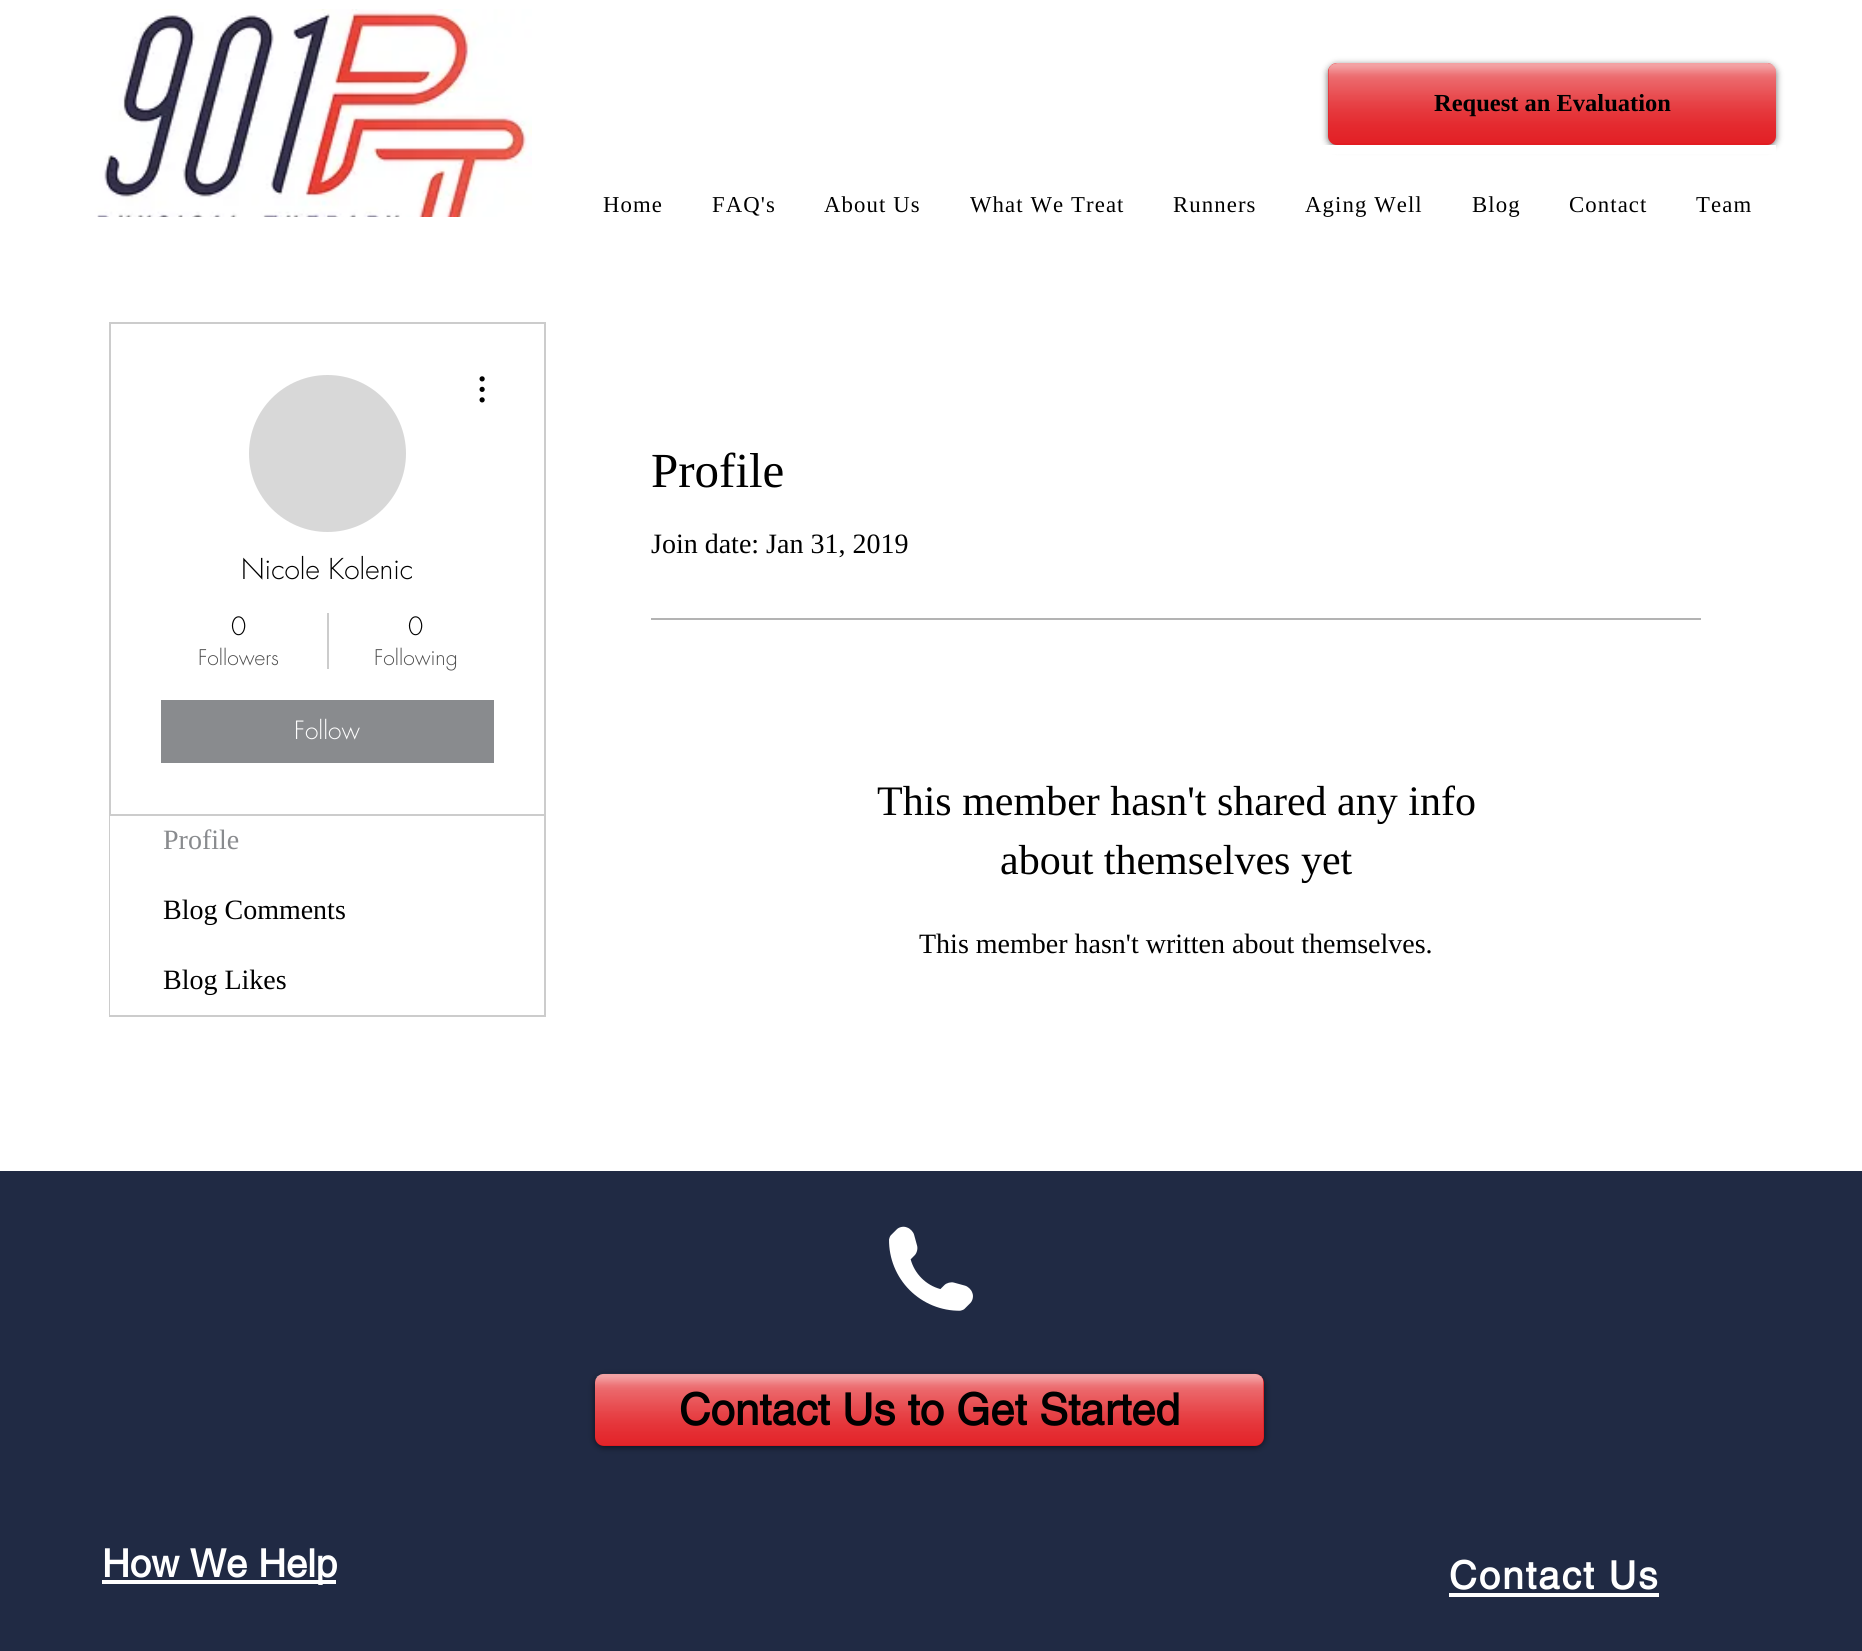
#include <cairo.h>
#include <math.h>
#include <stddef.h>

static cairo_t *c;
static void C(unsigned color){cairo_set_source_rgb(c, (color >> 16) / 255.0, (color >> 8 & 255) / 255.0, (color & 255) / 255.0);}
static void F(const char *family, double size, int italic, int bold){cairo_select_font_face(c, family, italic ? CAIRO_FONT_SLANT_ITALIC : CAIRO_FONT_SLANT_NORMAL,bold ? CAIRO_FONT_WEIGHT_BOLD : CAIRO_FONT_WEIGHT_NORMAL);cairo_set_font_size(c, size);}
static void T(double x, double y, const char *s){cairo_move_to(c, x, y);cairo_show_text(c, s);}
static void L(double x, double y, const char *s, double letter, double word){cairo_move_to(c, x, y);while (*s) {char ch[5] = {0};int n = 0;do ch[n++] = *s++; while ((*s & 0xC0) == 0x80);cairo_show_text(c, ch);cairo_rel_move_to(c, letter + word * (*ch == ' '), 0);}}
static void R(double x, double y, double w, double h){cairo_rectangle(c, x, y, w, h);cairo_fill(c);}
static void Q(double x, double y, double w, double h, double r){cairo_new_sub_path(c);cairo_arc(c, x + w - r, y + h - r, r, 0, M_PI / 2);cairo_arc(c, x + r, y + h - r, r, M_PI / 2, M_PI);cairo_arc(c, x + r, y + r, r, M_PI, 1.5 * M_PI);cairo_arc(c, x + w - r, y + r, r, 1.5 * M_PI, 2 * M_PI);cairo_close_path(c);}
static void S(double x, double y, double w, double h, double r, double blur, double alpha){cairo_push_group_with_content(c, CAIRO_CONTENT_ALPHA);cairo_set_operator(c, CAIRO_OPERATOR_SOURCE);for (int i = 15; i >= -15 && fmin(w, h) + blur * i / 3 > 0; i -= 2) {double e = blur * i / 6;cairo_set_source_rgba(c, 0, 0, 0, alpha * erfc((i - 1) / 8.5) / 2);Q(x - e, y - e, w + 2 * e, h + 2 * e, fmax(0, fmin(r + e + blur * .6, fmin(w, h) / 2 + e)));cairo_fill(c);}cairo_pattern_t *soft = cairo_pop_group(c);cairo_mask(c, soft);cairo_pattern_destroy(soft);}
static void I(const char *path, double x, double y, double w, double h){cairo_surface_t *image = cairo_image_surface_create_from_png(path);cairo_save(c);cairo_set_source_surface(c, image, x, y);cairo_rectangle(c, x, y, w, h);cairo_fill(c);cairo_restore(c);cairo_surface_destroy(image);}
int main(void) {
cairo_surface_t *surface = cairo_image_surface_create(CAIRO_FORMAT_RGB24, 1862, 1651);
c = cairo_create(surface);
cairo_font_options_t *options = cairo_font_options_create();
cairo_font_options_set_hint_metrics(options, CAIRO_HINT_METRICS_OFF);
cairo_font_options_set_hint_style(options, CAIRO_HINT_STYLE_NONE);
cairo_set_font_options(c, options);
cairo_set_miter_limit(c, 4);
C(0xffffff);
cairo_paint(c);
I("1.png",90,9,442,208);
C(0x000000);
S(1328,65,448,82,9,3.5,.6);
C(0xe21c21);
Q(1328,63,448,82,9);
cairo_fill(c);
I("2.png",1328,63,448,80);
F("Liberation Serif",24.5,0,1);
C(0x000000);
T(1434,111,"Request an Evaluation");
C(0xffffff);
R(1323,145,453,9);
F("Liberation Serif",22.75,0,0);
C(0x000000);
L(603,212,"Home",1.1,0);
L(712,212,"FAQ's",1.1,0);
L(824,212,"About Us",1.1,0);
L(970,212,"What We Treat",1.1,0);
L(1173,212,"Runners",1.1,0);
L(1305,212,"Aging Well",1.1,0);
L(1472,212,"Blog",1.1,0);
L(1569,212,"Contact",1.1,0);
L(1696,212,"Team",1.1,0);
cairo_rectangle(c,110,804,435,212);
C(0xcccccc);
cairo_stroke(c);
C(0xffffff);
R(111,803,433,2);
cairo_rectangle(c,110,323,435,492);
C(0xcccccc);
cairo_stroke(c);
C(0xd8d8d8);
cairo_arc(c,327.5,453.5,78.5,0,2 * M_PI);
cairo_fill(c);
I("3.png",479,376,6,27);
F("futura Light",28,0,0);
C(0x000000);
T(241,579,"Nicole Kolenic");
F("futura Light",24.5,0,0);
T(231,635,"0");
F("futura Light",21,0,0);
C(0x4d4d4d);
T(198,665,"Followers");
C(0xcccccc);
R(327,613,2,56);
F("futura Light",24.5,0,0);
C(0x000000);
T(408,635,"0");
F("futura Light",21,0,0);
C(0x4d4d4d);
T(374,665,"Following");
C(0x898b8e);
R(161,700,333,63);
F("futura Light",24.5,0,0);
C(0xffffff);
T(294,739,"Follow");
R(110,816,1,199);
F("Liberation Serif",28,0,0);
C(0x898b8e);
T(163,849,"Profile");
C(0x000000);
T(163,919,"Blog Comments");
T(163,989,"Blog Likes");
F("Liberation Serif",49,0,0);
T(651,487,"Profile");
F("Liberation Serif",28,0,0);
T(651,553,"Join date: Jan 31, 2019");
C(0xb3b3b3);
R(651,618,1050,2);
F("Liberation Serif",42,0,0);
C(0x000000);
T(877,815,"This member hasn't shared any info");
T(1000,874,"about themselves yet");
F("Liberation Serif",28,0,0);
T(919,953,"This member hasn't written about themselves.");
C(0x202a44);
R(0,1171,1862,480);
I("4.png",889,1226,84,85);
C(0x000000);
S(595,1376,669,71,9,3.5,.6);
C(0xe21c21);
Q(595,1374,669,72,9);
cairo_fill(c);
I("5.png",595,1373,669,72);
F("helvetica",43.75,0,1);
C(0x000000);
T(679,1425,"Contact Us to Get Started");
C(0xffffff);
R(102,1580,234,4);
F("helvetica",38.5,0,1);
T(102,1577,"How We Help");
L(1449,1589,"Contact Us",2,0);
R(1449,1593,210,4);
cairo_surface_write_to_png(surface, "o.png");
cairo_font_options_destroy(options);
cairo_destroy(c);
cairo_surface_destroy(surface);
return 0;
}
